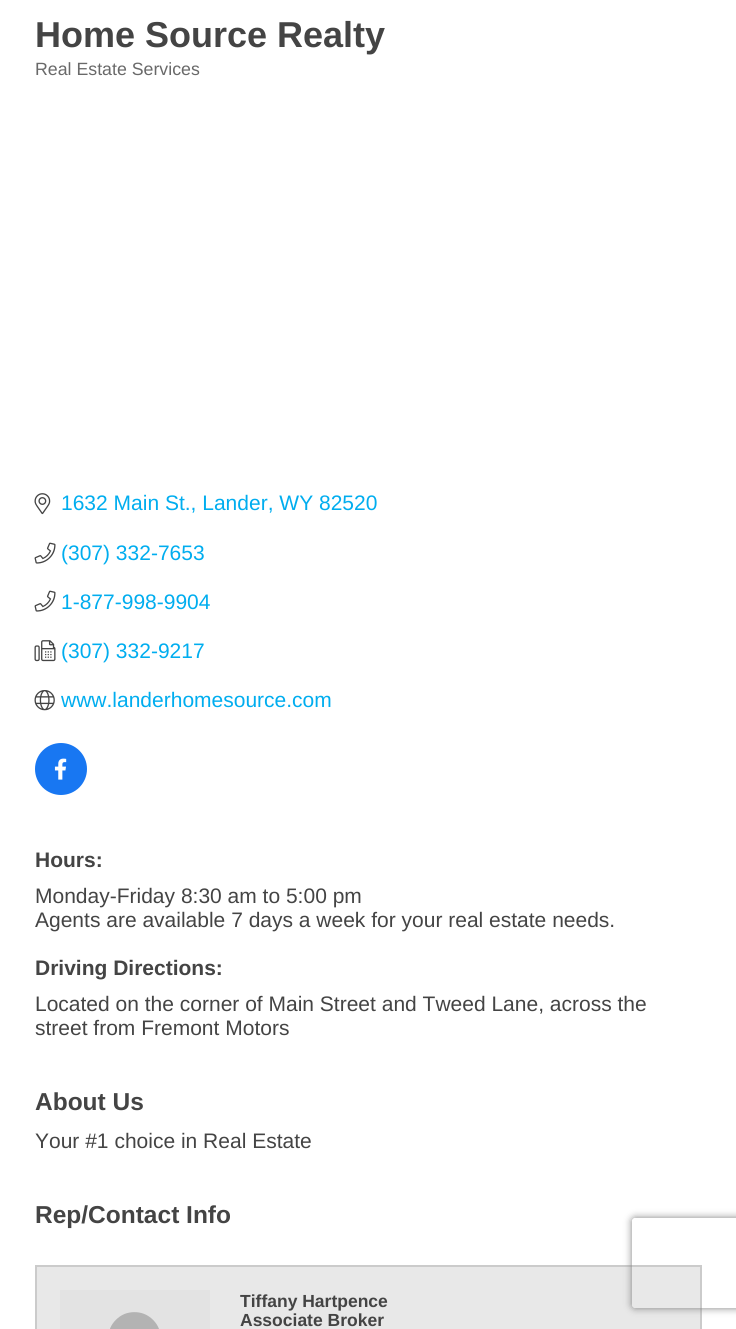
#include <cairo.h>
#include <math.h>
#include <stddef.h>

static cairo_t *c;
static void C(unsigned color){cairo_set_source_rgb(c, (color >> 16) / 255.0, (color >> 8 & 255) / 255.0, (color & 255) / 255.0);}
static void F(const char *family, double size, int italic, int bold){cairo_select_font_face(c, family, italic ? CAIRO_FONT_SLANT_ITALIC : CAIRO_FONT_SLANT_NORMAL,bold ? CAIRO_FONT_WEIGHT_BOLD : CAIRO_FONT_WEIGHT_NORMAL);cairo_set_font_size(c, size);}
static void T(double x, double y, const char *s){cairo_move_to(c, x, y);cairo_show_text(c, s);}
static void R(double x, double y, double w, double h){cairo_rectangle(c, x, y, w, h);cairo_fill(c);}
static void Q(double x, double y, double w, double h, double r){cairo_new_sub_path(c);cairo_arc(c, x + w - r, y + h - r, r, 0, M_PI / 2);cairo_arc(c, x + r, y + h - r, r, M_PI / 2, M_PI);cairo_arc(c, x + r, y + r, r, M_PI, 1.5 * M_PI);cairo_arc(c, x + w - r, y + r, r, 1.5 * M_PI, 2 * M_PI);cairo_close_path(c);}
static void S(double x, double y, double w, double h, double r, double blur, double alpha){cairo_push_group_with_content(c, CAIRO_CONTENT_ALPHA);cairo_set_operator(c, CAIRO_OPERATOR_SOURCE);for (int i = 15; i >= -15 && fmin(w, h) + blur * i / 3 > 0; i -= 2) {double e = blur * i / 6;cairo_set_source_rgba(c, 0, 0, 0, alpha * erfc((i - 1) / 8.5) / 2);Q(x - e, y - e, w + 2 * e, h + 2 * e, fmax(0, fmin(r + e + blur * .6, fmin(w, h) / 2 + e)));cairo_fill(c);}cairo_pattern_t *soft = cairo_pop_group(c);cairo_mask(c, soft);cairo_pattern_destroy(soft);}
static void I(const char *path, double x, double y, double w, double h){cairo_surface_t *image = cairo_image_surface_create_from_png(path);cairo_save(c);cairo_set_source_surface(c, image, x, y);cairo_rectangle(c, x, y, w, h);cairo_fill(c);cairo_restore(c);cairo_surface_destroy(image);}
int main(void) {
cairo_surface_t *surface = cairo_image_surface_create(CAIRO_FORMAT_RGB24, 736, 1329);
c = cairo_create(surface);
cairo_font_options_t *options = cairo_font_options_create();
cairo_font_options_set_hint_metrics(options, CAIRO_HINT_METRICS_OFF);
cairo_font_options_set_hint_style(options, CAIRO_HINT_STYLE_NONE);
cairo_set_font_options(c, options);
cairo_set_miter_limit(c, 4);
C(0xffffff);
cairo_paint(c);
F("Liberation Sans",36,0,1);
C(0x444444);
T(35,47,"Home Source Realty");
F("Liberation Sans",17.75,0,0);
C(0x696969);
T(35,75,"Real Estate Services");
I("1.png",34,493,17,22);
F("Liberation Sans",21,0,0);
C(0x00adef);
T(61,510,"1632 Main St., Lander, WY 82520");
I("2.png",34,542,22,22);
T(61,560,"(307) 332-7653");
I("2.png",34,590,22,22);
T(61,609,"1-877-998-9904");
I("3.png",34,640,22,22);
T(61,658,"(307) 332-9217");
I("4.png",34,690,21,21);
T(61,707,"www.landerhomesource.com");
C(0x1877f2);
cairo_new_path(c);
cairo_arc(c,61,769,26,0,2 * M_PI);
cairo_fill(c);
I("5.png",54,758,13,22);
F("Liberation Sans",21,0,1);
C(0x444444);
T(35,867,"Hours:");
F("Liberation Sans",21,0,0);
T(35,903,"Monday-Friday 8:30 am to 5:00 pm");
T(35,927,"Agents are available 7 days a week for your real estate needs.");
F("Liberation Sans",21,0,1);
T(35,975,"Driving Directions:");
F("Liberation Sans",21,0,0);
T(35,1011,"Located on the corner of Main Street and Tweed Lane, across the");
T(35,1035,"street from Fremont Motors");
F("Liberation Sans",24.5,0,1);
T(35,1110,"About Us");
F("Liberation Sans",21,0,0);
T(35,1148,"Your #1 choice in Real Estate");
F("Liberation Sans",24.5,0,1);
T(35,1223,"Rep/Contact Info");
C(0xe8e8e8);
cairo_rectangle(c,36,1266,665,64);
cairo_fill_preserve(c);
C(0xcbcbcb);
cairo_stroke(c);
C(0xe3e3e3);
R(60,1290,150,39);
I("6.png",110,1312,49,17);
F("Liberation Sans",17.5,0,1);
C(0x444444);
T(240,1307,"Tiffany Hartpence");
T(240,1326,"Associate Broker");
cairo_save(c);
cairo_set_fill_rule(c,CAIRO_FILL_RULE_EVEN_ODD);
cairo_new_path(c);
cairo_move_to(c,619,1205);
cairo_line_to(c,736,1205);
cairo_line_to(c,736,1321);
cairo_line_to(c,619,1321);
cairo_close_path(c);
cairo_move_to(c,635,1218);
cairo_line_to(c,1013,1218);
cairo_curve_to(c,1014.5,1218,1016,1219.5,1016,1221);
cairo_line_to(c,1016,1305);
cairo_curve_to(c,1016,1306.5,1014.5,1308,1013,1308);
cairo_line_to(c,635,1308);
cairo_curve_to(c,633.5,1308,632,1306.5,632,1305);
cairo_line_to(c,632,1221);
cairo_curve_to(c,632,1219.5,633.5,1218,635,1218);
cairo_close_path(c);
cairo_clip(c);
C(0x808080);
S(632,1218,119,90,3,4,1);
cairo_restore(c);
cairo_surface_write_to_png(surface, "o.png");
cairo_font_options_destroy(options);
cairo_destroy(c);
cairo_surface_destroy(surface);
return 0;
}
